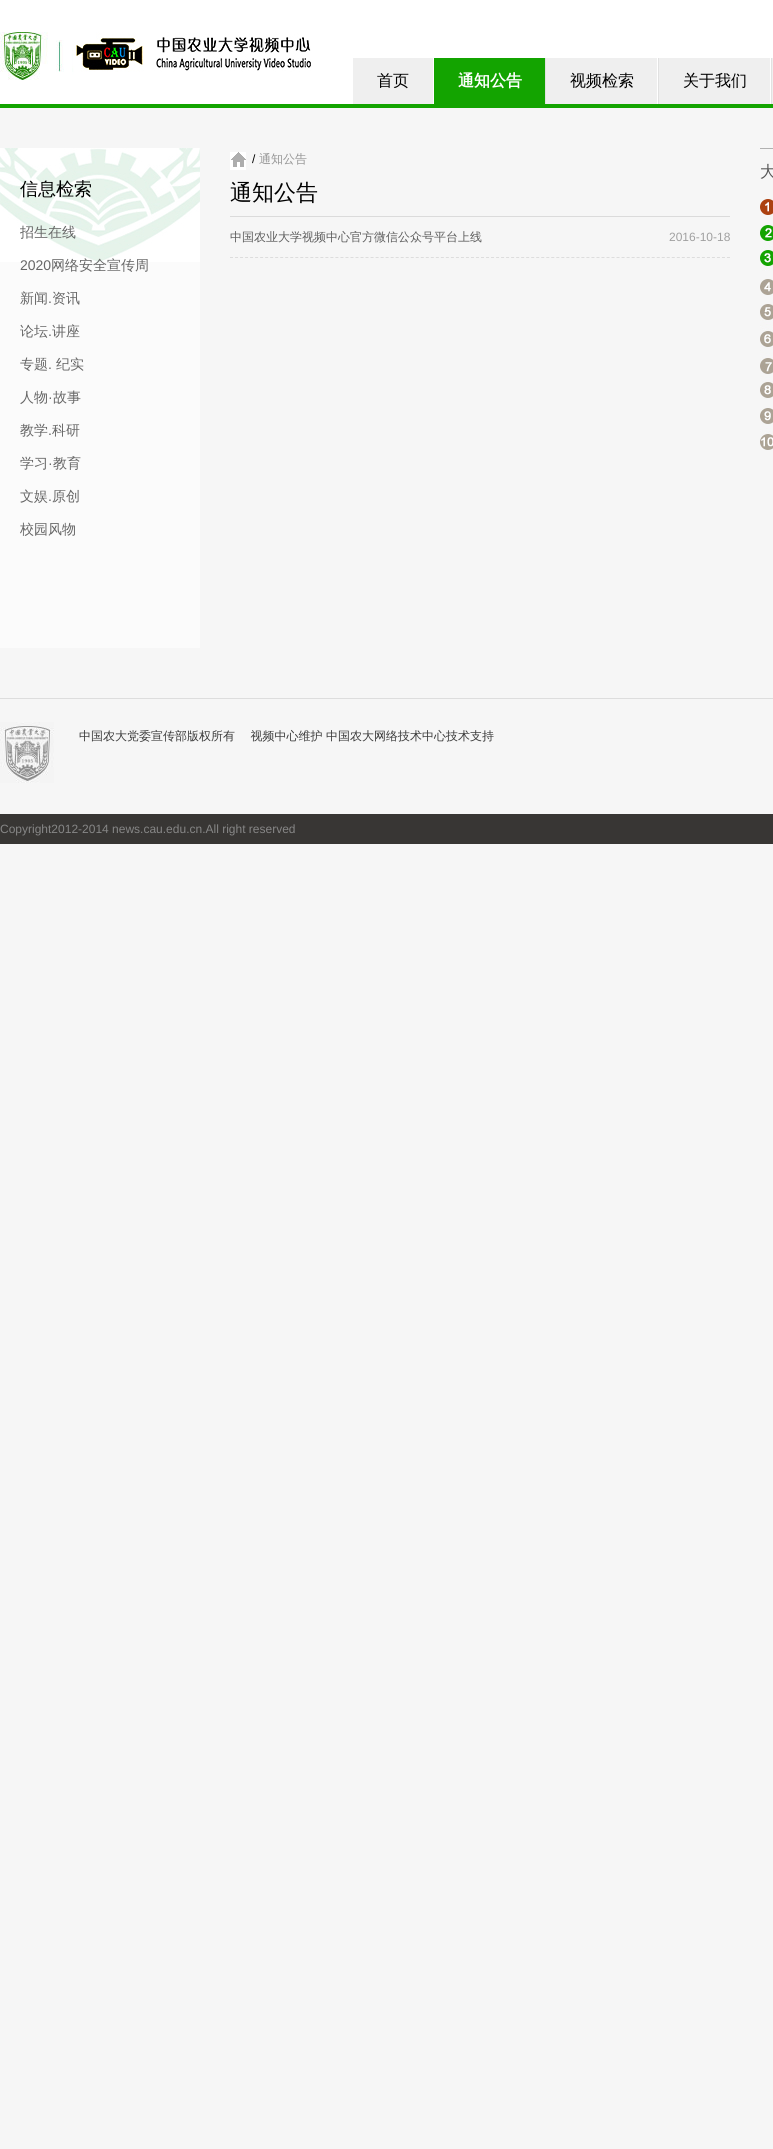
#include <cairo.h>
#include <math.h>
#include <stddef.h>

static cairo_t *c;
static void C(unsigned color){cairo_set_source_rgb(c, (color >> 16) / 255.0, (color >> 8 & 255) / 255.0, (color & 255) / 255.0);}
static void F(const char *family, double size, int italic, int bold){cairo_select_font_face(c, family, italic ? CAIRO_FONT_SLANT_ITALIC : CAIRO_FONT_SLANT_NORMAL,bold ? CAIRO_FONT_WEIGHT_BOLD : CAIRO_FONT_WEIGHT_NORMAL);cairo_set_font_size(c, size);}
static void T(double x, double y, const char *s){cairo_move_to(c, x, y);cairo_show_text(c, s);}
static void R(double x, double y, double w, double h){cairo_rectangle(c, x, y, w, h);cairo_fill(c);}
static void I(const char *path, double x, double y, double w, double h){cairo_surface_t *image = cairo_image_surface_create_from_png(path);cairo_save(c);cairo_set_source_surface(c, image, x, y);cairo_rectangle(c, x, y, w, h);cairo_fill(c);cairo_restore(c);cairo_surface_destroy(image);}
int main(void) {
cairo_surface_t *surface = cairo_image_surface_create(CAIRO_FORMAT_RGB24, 773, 2149);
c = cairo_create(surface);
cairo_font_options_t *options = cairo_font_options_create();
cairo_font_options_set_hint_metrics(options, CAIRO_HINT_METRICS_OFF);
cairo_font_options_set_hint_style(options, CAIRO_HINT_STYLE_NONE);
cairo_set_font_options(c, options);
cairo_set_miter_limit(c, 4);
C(0xf6f6f6);
cairo_paint(c);
C(0xffffff);
R(0,0,773,104);
C(0x13a400);
R(0,104,773,4);
I("1.png",0,32,311,48);
C(0xefefef);
R(353,58,420,46);
C(0xffffff);
R(433,58,1,46);
F("WenQuanYi Zen Hei Medium",16,0,0);
C(0x000000);
T(377,86,"首页");
C(0x13a400);
R(434,58,111,46);
F("WenQuanYi Zen Hei",16,0,1);
C(0xffffff);
T(458,86,"通知公告");
R(657,58,1,46);
C(0xe1e1e1);
R(545,58,1,46);
F("WenQuanYi Zen Hei Medium",16,0,0);
C(0x000000);
T(570,86,"视频检索");
C(0xffffff);
R(770,58,1,46);
C(0xe1e1e1);
R(658,58,1,46);
C(0x000000);
T(683,86,"关于我们");
C(0xe1e1e1);
R(771,58,1,46);
I("2.png",230,152,16,18);
F("Liberation Sans",12,0,0);
C(0x000000);
T(252,163,"/");
F("WenQuanYi Zen Hei Medium",12,0,0);
C(0x959595);
T(259,163,"通知公告");
C(0xdbdbdb);
R(230,216,500,1);
F("WenQuanYi Zen Hei Medium",22,0,0);
C(0x000000);
T(230,200,"通知公告");
cairo_new_path(c);
cairo_move_to(c,230,257.5);
cairo_line_to(c,730,257.5);
C(0xdddddd);
cairo_set_line_width(c,1);
cairo_set_dash(c,(double[]){3,2.02},2,0);
cairo_stroke(c);
F("WenQuanYi Zen Hei Medium",12,0,0);
C(0x5d5d5d);
T(230,241,"中国农业大学视频中心官方微信公众号平台上线");
F("Liberation Sans",12,0,0);
C(0xa0a0a0);
T(669,241,"2016-10-18");
C(0xb1b1b1);
R(760,148,13,1);
F("WenQuanYi Zen Hei Medium",16,0,0);
C(0x555555);
T(760,177,"大");
I("3.png",760,199,13,251);
C(0xfbfbfb);
R(0,262,200,386);
I("4.png",0,148,200,114);
F("WenQuanYi Zen Hei Medium",18,0,0);
C(0x000000);
T(20,195,"信息检索");
F("WenQuanYi Zen Hei Medium",14,0,0);
C(0x666666);
T(20,237,"招生在线");
F("Liberation Sans",14,0,0);
T(20,270,"2020");
F("WenQuanYi Zen Hei Medium",14,0,0);
T(51,270,"网络安全宣传周");
T(20,303,"新闻");
F("Liberation Sans",14,0,0);
T(48,303,".");
F("WenQuanYi Zen Hei Medium",14,0,0);
T(52,303,"资讯");
T(20,336,"论坛");
F("Liberation Sans",14,0,0);
T(48,336,".");
F("WenQuanYi Zen Hei Medium",14,0,0);
T(52,336,"讲座");
T(20,369,"专题");
F("Liberation Sans",14,0,0);
T(48,369,".");
F("WenQuanYi Zen Hei Medium",14,0,0);
T(56,369,"纪实");
T(20,402,"人物");
F("Liberation Sans",14,0,0);
T(48,402,"·");
F("WenQuanYi Zen Hei Medium",14,0,0);
T(53,402,"故事");
T(20,435,"教学");
F("Liberation Sans",14,0,0);
T(48,435,".");
F("WenQuanYi Zen Hei Medium",14,0,0);
T(52,435,"科研");
T(20,468,"学习");
F("Liberation Sans",14,0,0);
T(48,468,"·");
F("WenQuanYi Zen Hei Medium",14,0,0);
T(53,468,"教育");
T(20,501,"文娱");
F("Liberation Sans",14,0,0);
T(48,501,".");
F("WenQuanYi Zen Hei Medium",14,0,0);
T(52,501,"原创");
T(20,534,"校园风物");
C(0xdddddd);
R(0,698,773,1);
I("5.png",0,722,54,61);
F("WenQuanYi Zen Hei Medium",12,0,0);
C(0x3a3a3a);
T(79,740,"中国农大党委宣传部版权所有　 视频中心维护");
T(326,740,"中国农大网络技术中心技术支持");
C(0x383634);
R(0,814,773,30);
F("Liberation Sans",12,0,0);
C(0x868686);
T(0,833,"Copyright2012-2014 news.cau.edu.cn.All right reserved");
cairo_surface_write_to_png(surface, "o.png");
cairo_font_options_destroy(options);
cairo_destroy(c);
cairo_surface_destroy(surface);
return 0;
}
